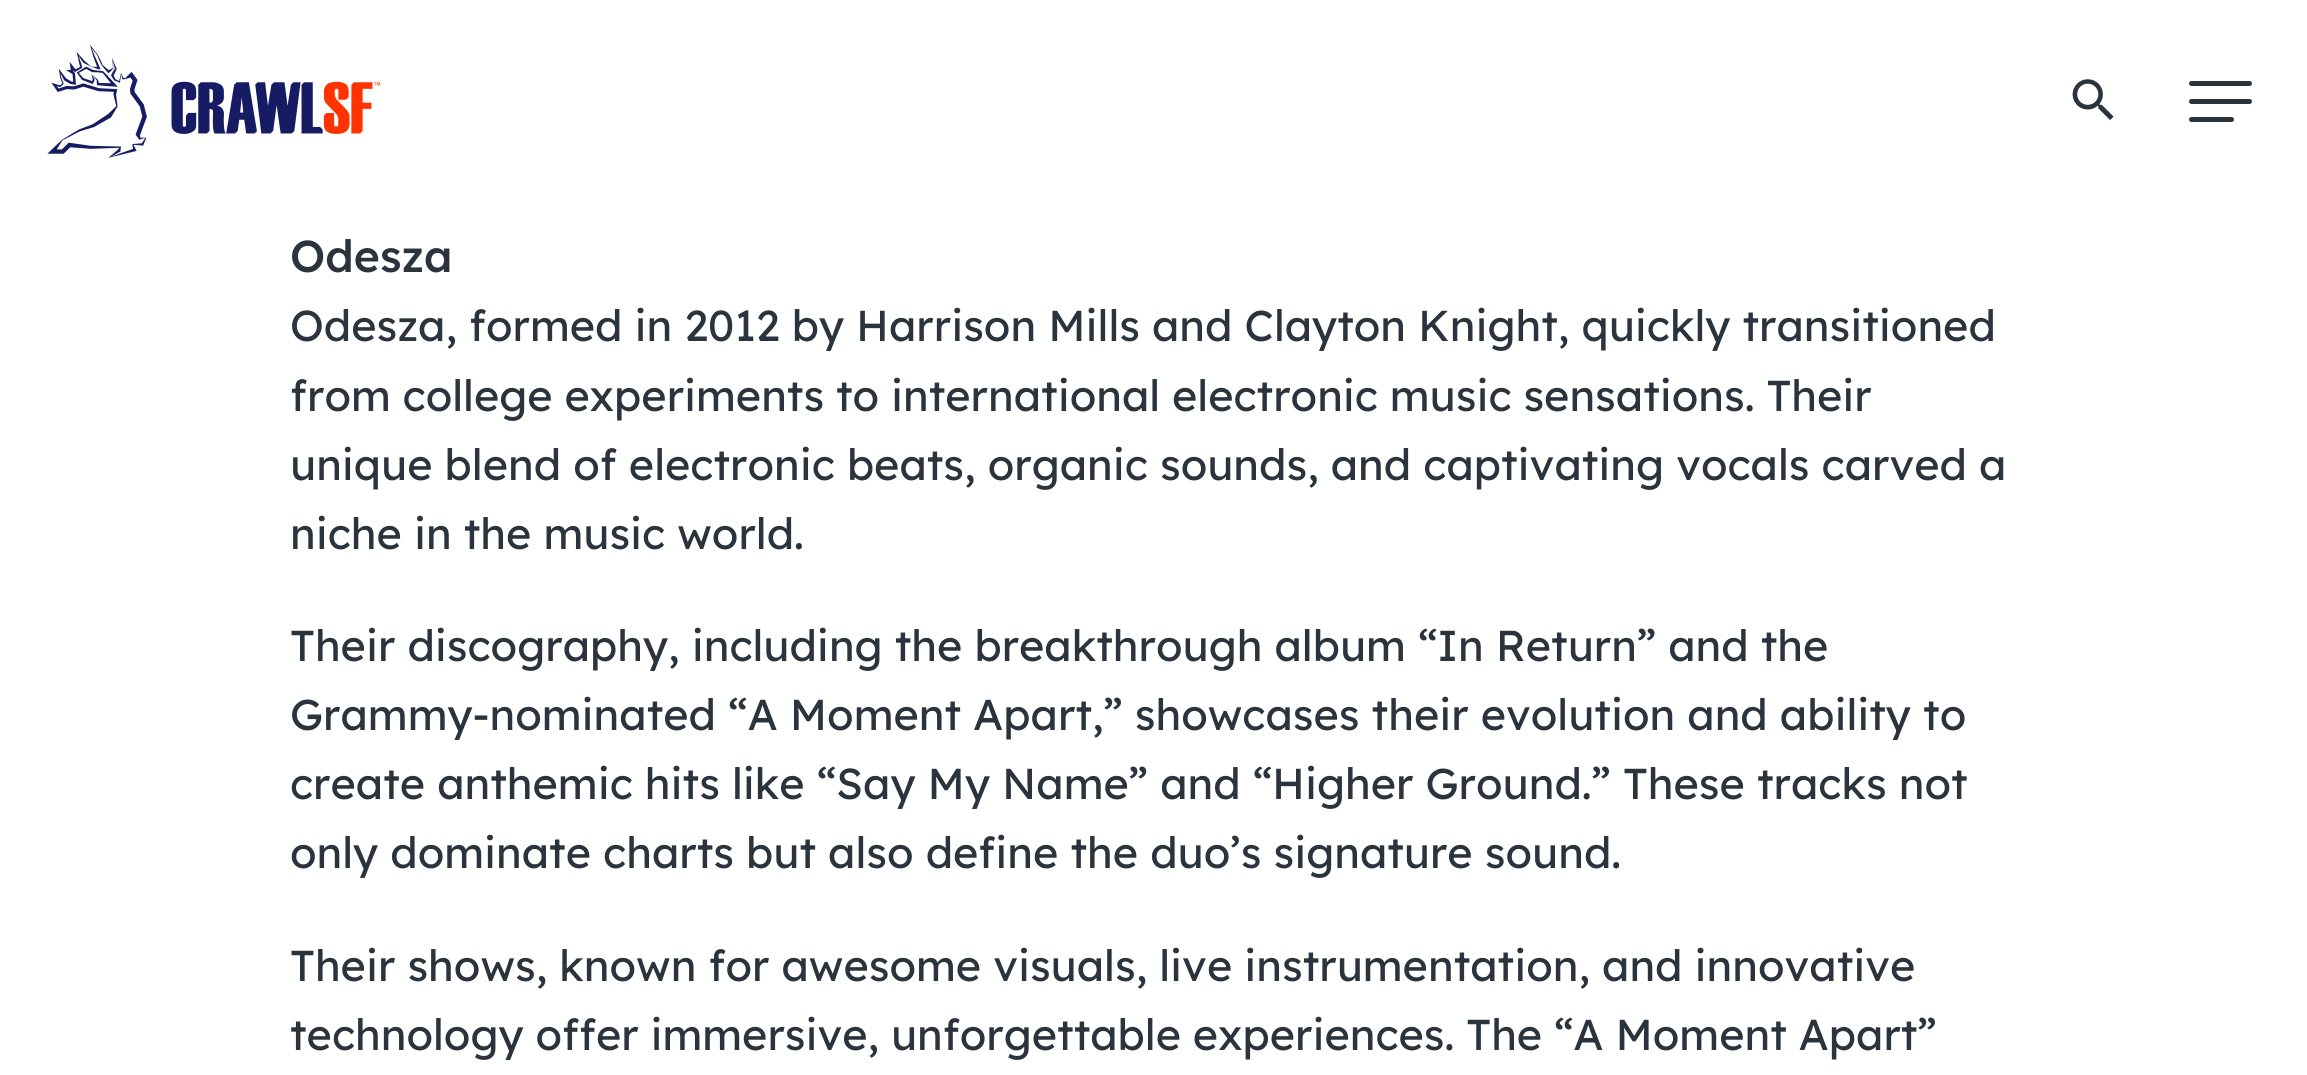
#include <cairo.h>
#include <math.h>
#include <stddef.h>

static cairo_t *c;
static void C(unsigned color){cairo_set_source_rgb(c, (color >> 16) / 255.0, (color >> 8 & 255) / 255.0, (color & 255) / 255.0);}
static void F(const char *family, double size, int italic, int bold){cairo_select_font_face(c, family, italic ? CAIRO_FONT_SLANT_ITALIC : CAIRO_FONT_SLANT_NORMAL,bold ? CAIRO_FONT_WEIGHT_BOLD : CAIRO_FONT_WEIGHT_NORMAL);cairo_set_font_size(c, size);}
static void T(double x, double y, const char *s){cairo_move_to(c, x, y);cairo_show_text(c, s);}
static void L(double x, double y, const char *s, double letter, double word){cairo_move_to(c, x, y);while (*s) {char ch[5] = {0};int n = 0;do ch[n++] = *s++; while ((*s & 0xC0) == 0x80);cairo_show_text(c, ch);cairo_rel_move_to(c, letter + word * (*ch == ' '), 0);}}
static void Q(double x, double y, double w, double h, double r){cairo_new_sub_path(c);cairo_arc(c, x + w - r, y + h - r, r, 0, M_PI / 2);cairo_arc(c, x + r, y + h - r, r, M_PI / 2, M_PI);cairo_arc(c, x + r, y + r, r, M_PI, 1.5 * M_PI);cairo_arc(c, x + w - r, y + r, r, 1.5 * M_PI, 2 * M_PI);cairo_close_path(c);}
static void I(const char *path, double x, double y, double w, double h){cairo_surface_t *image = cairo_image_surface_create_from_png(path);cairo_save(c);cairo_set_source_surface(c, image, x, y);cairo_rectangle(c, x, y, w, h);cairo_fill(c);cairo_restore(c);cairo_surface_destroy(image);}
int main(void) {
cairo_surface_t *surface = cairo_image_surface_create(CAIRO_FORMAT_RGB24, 2307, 1075);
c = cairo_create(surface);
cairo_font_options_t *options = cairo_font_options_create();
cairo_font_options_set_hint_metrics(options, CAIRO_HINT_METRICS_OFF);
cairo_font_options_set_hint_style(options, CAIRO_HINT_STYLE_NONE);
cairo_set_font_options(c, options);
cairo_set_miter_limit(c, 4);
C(0xffffff);
cairo_paint(c);
I("1.png",47,45,334,113);
I("2.png",2072,79,42,41);
C(0x2b333d);
Q(2189,99,63,5,2.5);
cairo_fill(c);
Q(2189,81,63,5,2.5);
cairo_fill(c);
Q(2189,117,45,5,2.5);
cairo_fill(c);
F("Lexend Medium",44.5,0,0);
T(290,272,"Odesza");
F("Lexend",43.2,0,0);
T(290,341,"Odesza, formed in 2012 by Harrison Mills and Clayton Knight, quickly transitioned");
L(290,411,"from college experiments to international electronic music sensations. Their",0,-.25);
T(290,480,"unique blend of electronic beats, organic sounds, and captivating vocals carved a");
T(290,549,"niche in the music world.");
T(290,661,"Their discography, including the breakthrough album “In Return” and the");
T(290,730,"Grammy-nominated “A Moment Apart,” showcases their evolution and ability to");
T(290,799,"create anthemic hits like “Say My Name” and “Higher Ground.” These tracks not");
T(290,868,"only dominate charts but also define the duo’s signature sound.");
T(290,981,"Their shows, known for awesome visuals, live instrumentation, and innovative");
L(290,1050,"technology offer immersive, unforgettable experiences. The “A Moment Apart”",0,-.25);
cairo_surface_write_to_png(surface, "o.png");
cairo_font_options_destroy(options);
cairo_destroy(c);
cairo_surface_destroy(surface);
return 0;
}
